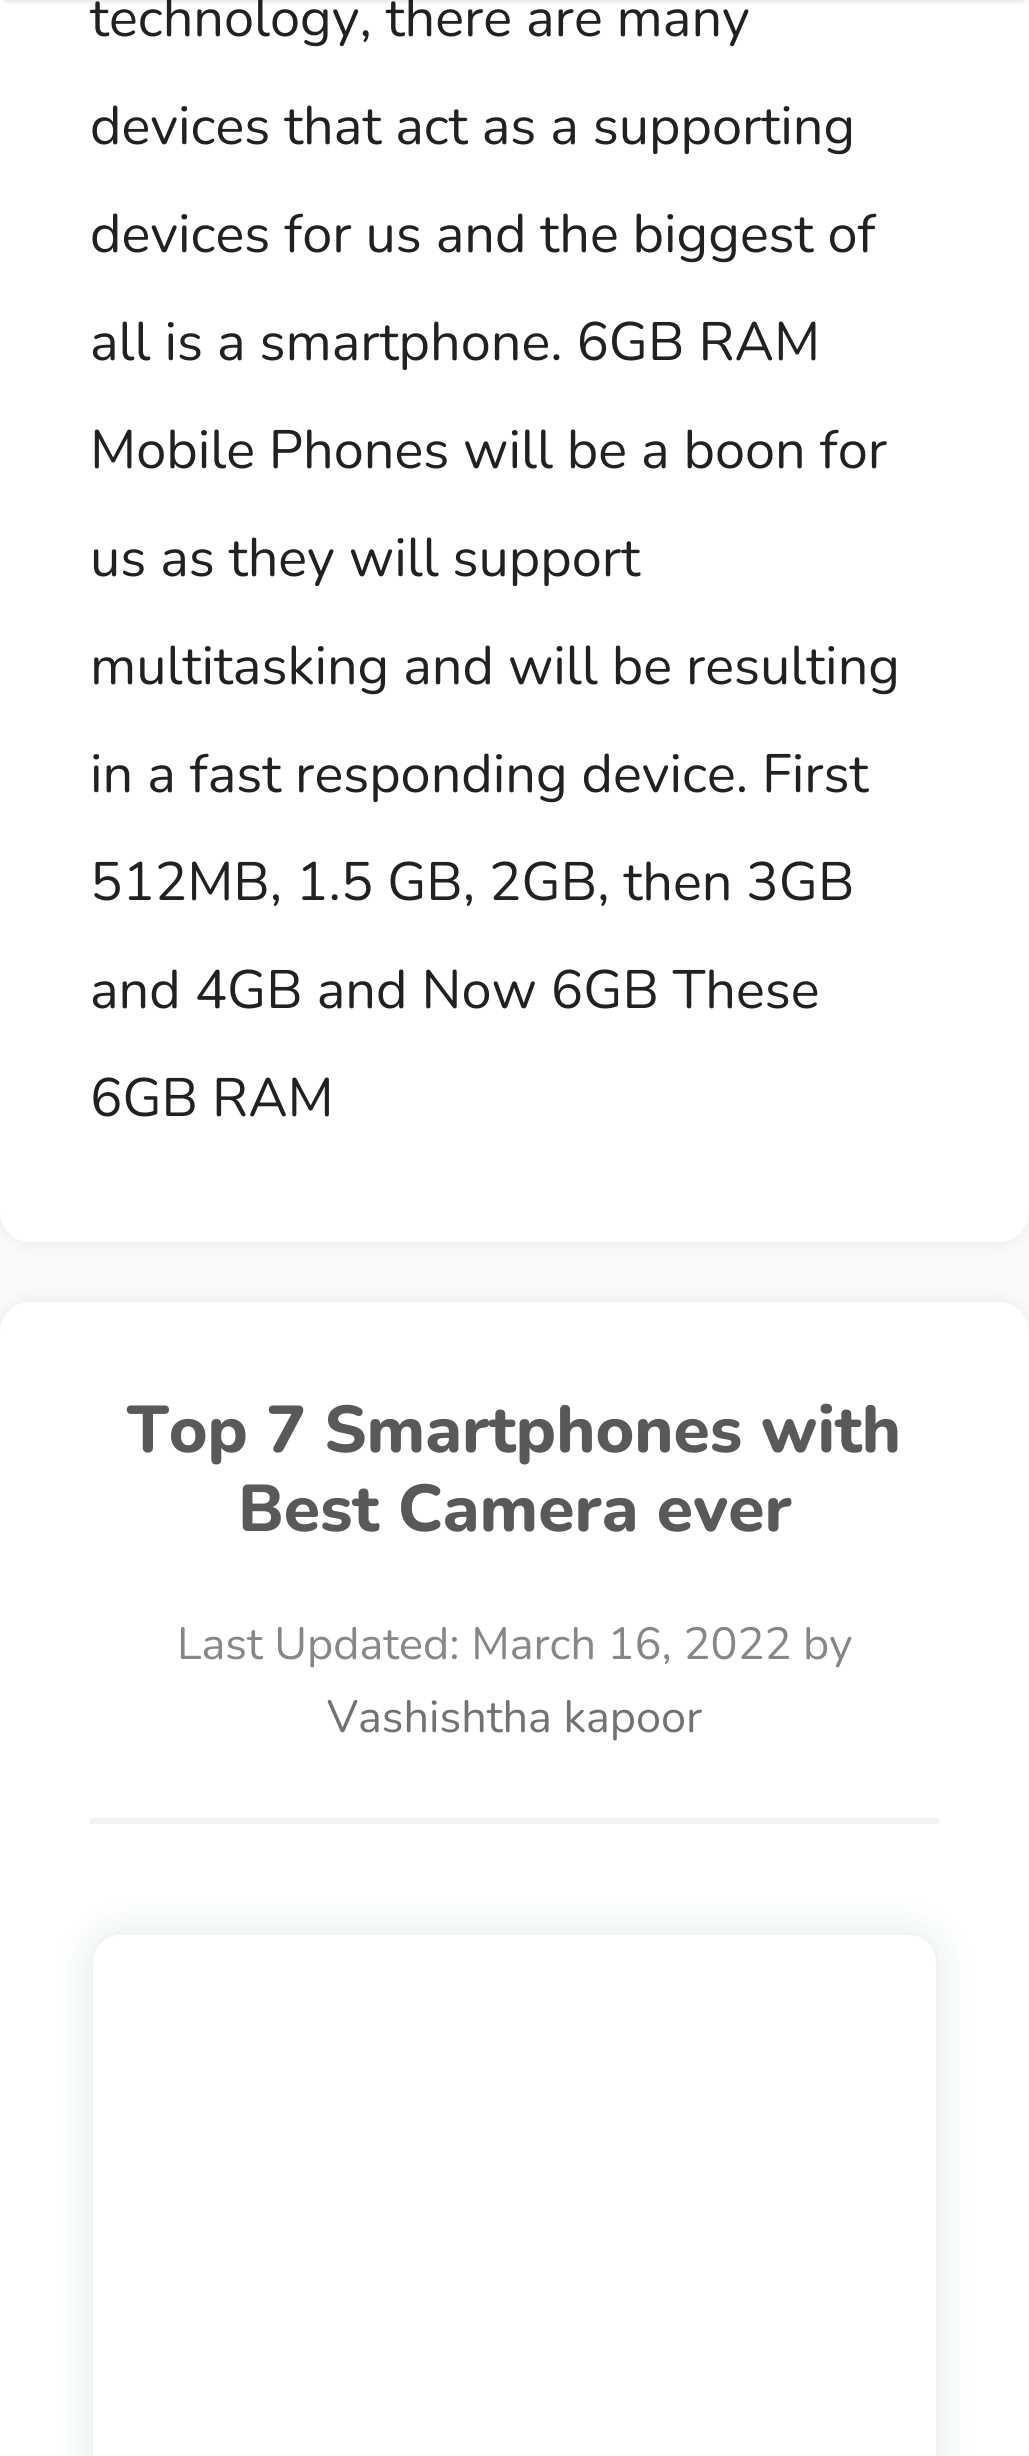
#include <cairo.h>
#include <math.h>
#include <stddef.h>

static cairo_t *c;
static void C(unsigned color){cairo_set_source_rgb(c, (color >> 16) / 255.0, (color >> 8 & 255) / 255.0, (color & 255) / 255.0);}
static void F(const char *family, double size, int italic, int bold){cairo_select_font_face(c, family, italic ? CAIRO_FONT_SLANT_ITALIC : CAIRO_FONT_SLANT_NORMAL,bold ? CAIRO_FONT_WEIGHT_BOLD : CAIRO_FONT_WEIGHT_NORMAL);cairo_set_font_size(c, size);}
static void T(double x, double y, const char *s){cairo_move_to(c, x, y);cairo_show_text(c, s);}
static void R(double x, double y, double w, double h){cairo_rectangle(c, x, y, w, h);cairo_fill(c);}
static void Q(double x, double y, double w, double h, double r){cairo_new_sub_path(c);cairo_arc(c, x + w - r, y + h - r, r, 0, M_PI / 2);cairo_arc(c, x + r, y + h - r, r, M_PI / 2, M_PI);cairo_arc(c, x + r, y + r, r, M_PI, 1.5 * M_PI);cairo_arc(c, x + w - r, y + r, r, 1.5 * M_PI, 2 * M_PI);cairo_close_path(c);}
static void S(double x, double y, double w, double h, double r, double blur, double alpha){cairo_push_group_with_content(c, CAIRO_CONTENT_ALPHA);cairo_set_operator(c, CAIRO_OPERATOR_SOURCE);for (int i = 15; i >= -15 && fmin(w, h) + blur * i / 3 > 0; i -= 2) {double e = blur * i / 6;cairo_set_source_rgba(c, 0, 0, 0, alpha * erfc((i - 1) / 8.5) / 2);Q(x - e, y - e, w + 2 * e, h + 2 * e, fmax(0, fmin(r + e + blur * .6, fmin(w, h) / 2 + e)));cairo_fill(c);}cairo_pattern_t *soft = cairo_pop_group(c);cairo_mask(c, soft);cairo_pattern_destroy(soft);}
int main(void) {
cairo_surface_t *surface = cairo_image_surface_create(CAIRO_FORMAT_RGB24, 1029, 2456);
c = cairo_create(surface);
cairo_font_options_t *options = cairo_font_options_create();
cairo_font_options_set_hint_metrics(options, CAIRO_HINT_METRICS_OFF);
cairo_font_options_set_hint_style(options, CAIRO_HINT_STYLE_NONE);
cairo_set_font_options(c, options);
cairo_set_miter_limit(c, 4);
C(0xfafafa);
cairo_paint(c);
C(0xd6e7e9);
S(0,-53,1029,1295,30,7.5,.75);
C(0xffffff);
Q(0,-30,1029,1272,30);
cairo_fill(c);
C(0x000000);
S(6,-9,1017,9,0,3,.2);
F("Nunito",54,0,0);
C(0x212121);
T(90,36,"technology, there are many");
T(90,144,"devices that act as a supporting");
T(90,252,"devices for us and the biggest of");
T(90,360,"all is a smartphone. 6GB RAM");
T(90,468,"Mobile Phones will be a boon for");
T(90,576,"us as they will support");
T(90,684,"multitasking and will be resulting");
T(90,792,"in a fast responding device. First");
T(90,900,"512MB, 1.5 GB, 2GB, then 3GB");
T(90,1008,"and 4GB and Now 6GB These");
T(90,1116,"6GB RAM");
C(0xd6e7e9);
S(0,1302,1029,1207,30,7.5,.75);
C(0xffffff);
Q(0,1302,1029,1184,30);
cairo_fill(c);
C(0xf3f3f3);
R(90,1818,849,6);
F("Nunito ExtraBold",66,0,0);
C(0x595959);
T(127,1452,"Top 7 Smartphones with");
T(238,1531,"Best Camera ever");
F("Nunito",45,0,0);
C(0x878787);
T(177,1659,"Last Updated: March 16, 2022 by");
C(0x727272);
T(327,1732,"Vashishtha kapoor");
cairo_save(c);
cairo_set_fill_rule(c,CAIRO_FILL_RULE_EVEN_ODD);
cairo_new_path(c);
cairo_move_to(c,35,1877);
cairo_line_to(c,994,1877);
cairo_line_to(c,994,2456);
cairo_line_to(c,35,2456);
cairo_close_path(c);
cairo_move_to(c,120,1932);
cairo_line_to(c,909,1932);
cairo_curve_to(c,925.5,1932,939,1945.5,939,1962);
cairo_line_to(c,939,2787);
cairo_curve_to(c,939,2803.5,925.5,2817,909,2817);
cairo_line_to(c,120,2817);
cairo_curve_to(c,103.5,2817,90,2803.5,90,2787);
cairo_line_to(c,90,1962);
cairo_curve_to(c,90,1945.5,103.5,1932,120,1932);
cairo_close_path(c);
cairo_clip(c);
C(0xd6e7e9);
S(90,1932,849,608,30,18,.75);
cairo_restore(c);
Q(91.5,1933.5,846,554,28.5);
C(0xf3f3f3);
cairo_set_line_width(c,3);
cairo_stroke(c);
cairo_surface_write_to_png(surface, "o.png");
cairo_font_options_destroy(options);
cairo_destroy(c);
cairo_surface_destroy(surface);
return 0;
}
